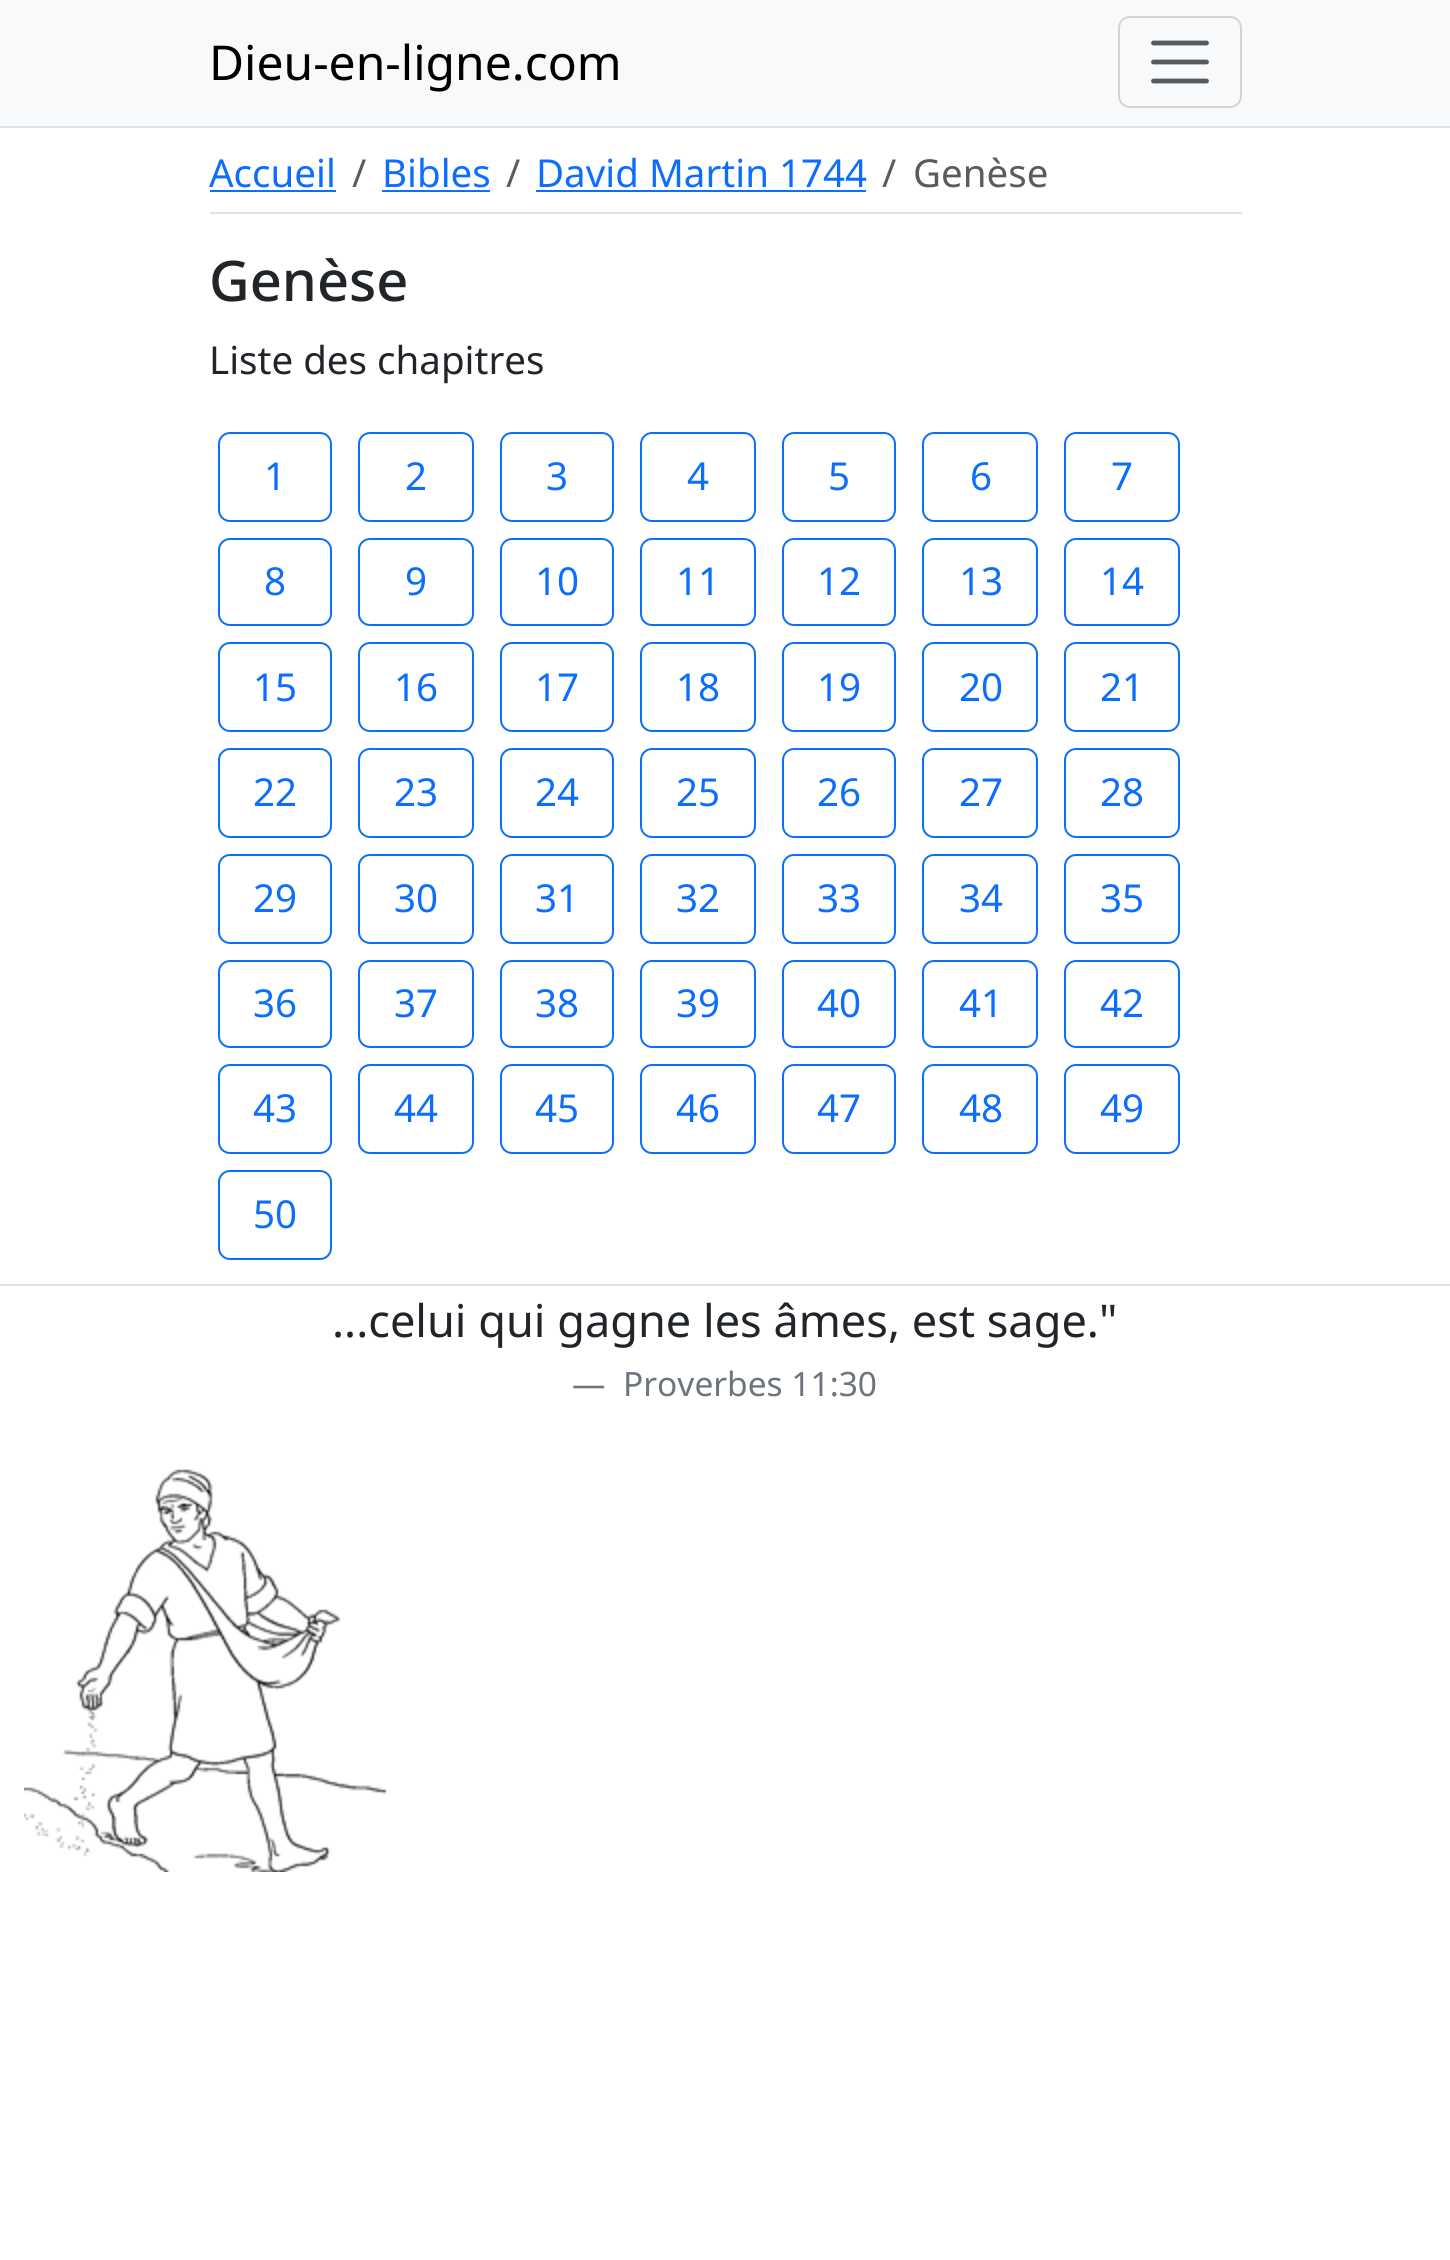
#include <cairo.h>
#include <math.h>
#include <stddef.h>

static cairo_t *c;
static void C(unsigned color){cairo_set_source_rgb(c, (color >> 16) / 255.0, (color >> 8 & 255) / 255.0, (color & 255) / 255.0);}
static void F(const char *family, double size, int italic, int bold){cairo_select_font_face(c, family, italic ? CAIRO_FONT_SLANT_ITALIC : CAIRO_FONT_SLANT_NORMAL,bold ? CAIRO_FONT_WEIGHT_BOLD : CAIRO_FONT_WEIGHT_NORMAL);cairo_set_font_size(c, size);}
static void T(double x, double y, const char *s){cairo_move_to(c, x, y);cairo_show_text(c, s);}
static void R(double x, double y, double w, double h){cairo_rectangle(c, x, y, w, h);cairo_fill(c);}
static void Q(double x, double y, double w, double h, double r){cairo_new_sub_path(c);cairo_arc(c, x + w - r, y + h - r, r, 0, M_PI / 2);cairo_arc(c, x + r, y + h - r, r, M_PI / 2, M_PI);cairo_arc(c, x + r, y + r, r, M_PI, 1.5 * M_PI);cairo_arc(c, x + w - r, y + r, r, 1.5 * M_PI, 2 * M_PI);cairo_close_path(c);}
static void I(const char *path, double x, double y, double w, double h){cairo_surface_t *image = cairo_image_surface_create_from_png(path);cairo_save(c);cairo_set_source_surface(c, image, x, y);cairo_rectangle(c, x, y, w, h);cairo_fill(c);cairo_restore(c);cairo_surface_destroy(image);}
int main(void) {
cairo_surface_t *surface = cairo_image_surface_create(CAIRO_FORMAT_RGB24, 1450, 2260);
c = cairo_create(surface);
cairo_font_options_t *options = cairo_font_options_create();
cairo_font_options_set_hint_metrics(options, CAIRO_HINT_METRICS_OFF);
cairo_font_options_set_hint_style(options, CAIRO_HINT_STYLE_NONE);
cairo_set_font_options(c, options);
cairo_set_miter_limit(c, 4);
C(0xffffff);
cairo_paint(c);
C(0xf8f9fa);
R(0,0,1450,126);
C(0xdee2e6);
R(0,126,1450,2);
F("Noto Sans",48,0,0);
C(0x000000);
T(209,80,"Dieu-en-ligne.com");
Q(1119,17,122,90,11);
C(0xd3d4d5);
cairo_stroke(c);
cairo_new_path(c);
cairo_move_to(c,1153.5,43);
cairo_line_to(c,1206.5,43);
cairo_move_to(c,1153.5,62);
cairo_line_to(c,1206.5,62);
cairo_move_to(c,1153.5,81);
cairo_line_to(c,1206.5,81);
C(0x575a5d);
cairo_set_line_width(c,4.8);
cairo_set_line_cap(c,CAIRO_LINE_CAP_ROUND);
cairo_stroke(c);
C(0xdee2e6);
R(210,212,1032,2);
F("Noto Sans",38.5,0,0);
C(0x0d6efd);
T(209,187,"Accueil");
R(210,190,126,2);
C(0x595c5f);
T(352,187,"/");
C(0x0d6efd);
T(382,187,"Bibles");
R(382,190,108,2);
C(0x595c5f);
T(506,187,"/");
C(0x0d6efd);
T(536,187,"David Martin 1744");
R(536,190,330,2);
C(0x595c5f);
T(882,187,"/");
T(913,187,"Genèse");
F("Noto Sans Medium",56,0,0);
C(0x212529);
T(209,301,"Genèse");
F("Noto Sans",38.5,0,0);
T(209,374,"Liste des chapitres");
Q(219,433,112,88,11);
C(0x0d6efd);
cairo_set_line_width(c,2);
cairo_set_line_cap(c,CAIRO_LINE_CAP_BUTT);
cairo_stroke(c);
T(264,490,"1");
Q(359,433,114,88,11);
cairo_stroke(c);
T(405,490,"2");
Q(501,433,112,88,11);
cairo_stroke(c);
T(546,490,"3");
Q(641,433,114,88,11);
cairo_stroke(c);
T(687,490,"4");
Q(783,433,112,88,11);
cairo_stroke(c);
T(828,490,"5");
Q(923,433,114,88,11);
cairo_stroke(c);
T(970,490,"6");
Q(1065,433,114,88,11);
cairo_stroke(c);
T(1111,490,"7");
Q(219,539,112,86,11);
cairo_stroke(c);
T(264,595,"8");
Q(359,539,114,86,11);
cairo_stroke(c);
T(405,595,"9");
Q(501,539,112,86,11);
cairo_stroke(c);
T(535,595,"10");
Q(641,539,114,86,11);
cairo_stroke(c);
T(676,595,"11");
Q(783,539,112,86,11);
cairo_stroke(c);
T(817,595,"12");
Q(923,539,114,86,11);
cairo_stroke(c);
T(959,595,"13");
Q(1065,539,114,86,11);
cairo_stroke(c);
T(1100,595,"14");
Q(219,643,112,88,11);
cairo_stroke(c);
T(253,701,"15");
Q(359,643,114,88,11);
cairo_stroke(c);
T(394,701,"16");
Q(501,643,112,88,11);
cairo_stroke(c);
T(535,701,"17");
Q(641,643,114,88,11);
cairo_stroke(c);
T(676,701,"18");
Q(783,643,112,88,11);
cairo_stroke(c);
T(817,701,"19");
Q(923,643,114,88,11);
cairo_stroke(c);
T(959,701,"20");
Q(1065,643,114,88,11);
cairo_stroke(c);
T(1100,701,"21");
Q(219,749,112,88,11);
cairo_stroke(c);
T(253,806,"22");
Q(359,749,114,88,11);
cairo_stroke(c);
T(394,806,"23");
Q(501,749,112,88,11);
cairo_stroke(c);
T(535,806,"24");
Q(641,749,114,88,11);
cairo_stroke(c);
T(676,806,"25");
Q(783,749,112,88,11);
cairo_stroke(c);
T(817,806,"26");
Q(923,749,114,88,11);
cairo_stroke(c);
T(959,806,"27");
Q(1065,749,114,88,11);
cairo_stroke(c);
T(1100,806,"28");
Q(219,855,112,88,11);
cairo_stroke(c);
T(253,912,"29");
Q(359,855,114,88,11);
cairo_stroke(c);
T(394,912,"30");
Q(501,855,112,88,11);
cairo_stroke(c);
T(535,912,"31");
Q(641,855,114,88,11);
cairo_stroke(c);
T(676,912,"32");
Q(783,855,112,88,11);
cairo_stroke(c);
T(817,912,"33");
Q(923,855,114,88,11);
cairo_stroke(c);
T(959,912,"34");
Q(1065,855,114,88,11);
cairo_stroke(c);
T(1100,912,"35");
Q(219,961,112,86,11);
cairo_stroke(c);
T(253,1017,"36");
Q(359,961,114,86,11);
cairo_stroke(c);
T(394,1017,"37");
Q(501,961,112,86,11);
cairo_stroke(c);
T(535,1017,"38");
Q(641,961,114,86,11);
cairo_stroke(c);
T(676,1017,"39");
Q(783,961,112,86,11);
cairo_stroke(c);
T(817,1017,"40");
Q(923,961,114,86,11);
cairo_stroke(c);
T(959,1017,"41");
Q(1065,961,114,86,11);
cairo_stroke(c);
T(1100,1017,"42");
Q(219,1065,112,88,11);
cairo_stroke(c);
T(253,1122,"43");
Q(359,1065,114,88,11);
cairo_stroke(c);
T(394,1122,"44");
Q(501,1065,112,88,11);
cairo_stroke(c);
T(535,1122,"45");
Q(641,1065,114,88,11);
cairo_stroke(c);
T(676,1122,"46");
Q(783,1065,112,88,11);
cairo_stroke(c);
T(817,1122,"47");
Q(923,1065,114,88,11);
cairo_stroke(c);
T(959,1122,"48");
Q(1065,1065,114,88,11);
cairo_stroke(c);
T(1100,1122,"49");
Q(219,1171,112,88,11);
cairo_stroke(c);
T(253,1228,"50");
C(0xdee2e6);
R(0,1284,1450,2);
F("Noto Sans",45.1,0,0);
C(0x212529);
T(332,1337,"...celui qui gagne les âmes, est sage.\"");
F("Noto Sans",33.5,0,0);
C(0x6c757d);
T(572,1396,"—");
T(623,1396,"Proverbes 11:30");
I("1.png",24,1469,363,403);
cairo_surface_write_to_png(surface, "o.png");
cairo_font_options_destroy(options);
cairo_destroy(c);
cairo_surface_destroy(surface);
return 0;
}
